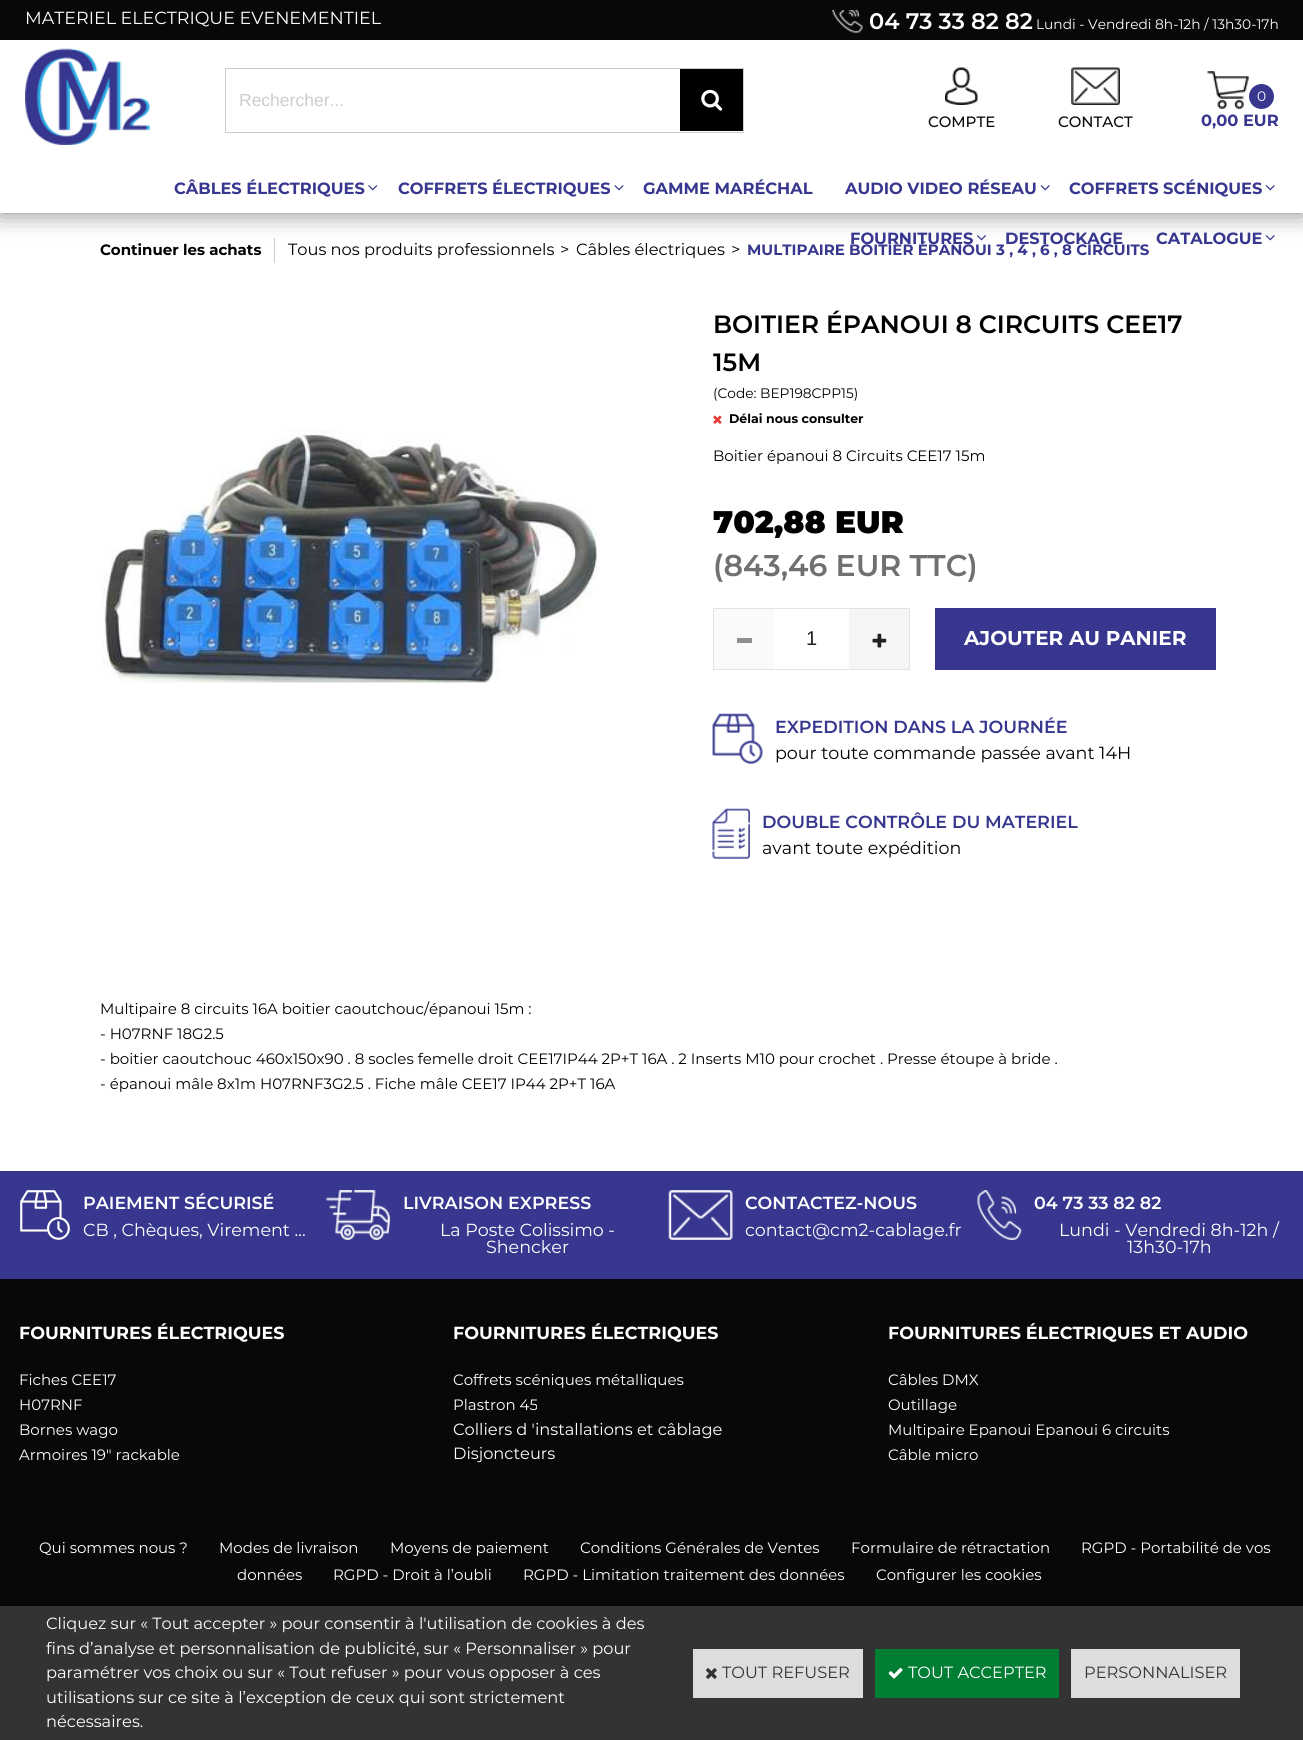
#include <cairo.h>
#include <math.h>
#include <stddef.h>

static cairo_t *c;
static void C(unsigned color){cairo_set_source_rgb(c, (color >> 16) / 255.0, (color >> 8 & 255) / 255.0, (color & 255) / 255.0);}
static void F(const char *family, double size, int italic, int bold){cairo_select_font_face(c, family, italic ? CAIRO_FONT_SLANT_ITALIC : CAIRO_FONT_SLANT_NORMAL,bold ? CAIRO_FONT_WEIGHT_BOLD : CAIRO_FONT_WEIGHT_NORMAL);cairo_set_font_size(c, size);}
static void T(double x, double y, const char *s){cairo_move_to(c, x, y);cairo_show_text(c, s);}
static void R(double x, double y, double w, double h){cairo_rectangle(c, x, y, w, h);cairo_fill(c);}
static void Q(double x, double y, double w, double h, double r){cairo_new_sub_path(c);cairo_arc(c, x + w - r, y + h - r, r, 0, M_PI / 2);cairo_arc(c, x + r, y + h - r, r, M_PI / 2, M_PI);cairo_arc(c, x + r, y + r, r, M_PI, 1.5 * M_PI);cairo_arc(c, x + w - r, y + r, r, 1.5 * M_PI, 2 * M_PI);cairo_close_path(c);}
static void S(double x, double y, double w, double h, double r, double blur, double alpha){cairo_push_group_with_content(c, CAIRO_CONTENT_ALPHA);cairo_set_operator(c, CAIRO_OPERATOR_SOURCE);for (int i = 15; i >= -15 && fmin(w, h) + blur * i / 3 > 0; i -= 2) {double e = blur * i / 6;cairo_set_source_rgba(c, 0, 0, 0, alpha * erfc((i - 1) / 8.5) / 2);Q(x - e, y - e, w + 2 * e, h + 2 * e, fmax(0, fmin(r + e + blur * .6, fmin(w, h) / 2 + e)));cairo_fill(c);}cairo_pattern_t *soft = cairo_pop_group(c);cairo_mask(c, soft);cairo_pattern_destroy(soft);}
static void I(const char *path, double x, double y, double w, double h){cairo_surface_t *image = cairo_image_surface_create_from_png(path);cairo_save(c);cairo_set_source_surface(c, image, x, y);cairo_rectangle(c, x, y, w, h);cairo_fill(c);cairo_restore(c);cairo_surface_destroy(image);}
int main(void) {
cairo_surface_t *surface = cairo_image_surface_create(CAIRO_FORMAT_RGB24, 1303, 1740);
c = cairo_create(surface);
cairo_font_options_t *options = cairo_font_options_create();
cairo_font_options_set_hint_metrics(options, CAIRO_HINT_METRICS_OFF);
cairo_font_options_set_hint_style(options, CAIRO_HINT_STYLE_NONE);
cairo_set_font_options(c, options);
cairo_set_miter_limit(c, 4);
C(0xffffff);
cairo_paint(c);
cairo_save(c);
cairo_set_fill_rule(c,CAIRO_FILL_RULE_EVEN_ODD);
cairo_new_path(c);
cairo_move_to(c,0,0);
cairo_line_to(c,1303,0);
cairo_line_to(c,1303,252);
cairo_line_to(c,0,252);
cairo_close_path(c);
cairo_move_to(c,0,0);
cairo_line_to(c,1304,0);
cairo_line_to(c,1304,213);
cairo_line_to(c,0,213);
cairo_close_path(c);
cairo_clip(c);
C(0x000000);
S(0,0,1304,213,0,12.5,.5);
cairo_restore(c);
C(0x080809);
R(0,0,1303,40);
F("Montserrat",17.5,0,0);
C(0xffffff);
T(25,24,"MATERIEL ELECTRIQUE EVENEMENTIEL");
I("1.png",832,10,31,23);
F("Montserrat SemiBold",22.5,0,0);
T(869,29,"04 73 33 82 82");
F("Montserrat",13.75,0,0);
T(1036,29,"Lundi - Vendredi 8h-12h / 13h30-17h");
I("2.png",25,48,125,97);
cairo_rectangle(c,225.5,68.5,518,64);
C(0xcccccc);
cairo_set_line_width(c,1);
cairo_stroke(c);
F("Liberation Sans",17.5,0,0);
T(239,106,"Rechercher...");
C(0x000000);
R(680,69,63,62);
I("3.png",701,89,22,22);
I("4.png",1207,71,42,38);
C(0x37378f);
cairo_arc(c,1261.5,96.5,12.5,0,2 * M_PI);
cairo_fill(c);
F("Montserrat",13.75,0,0);
C(0xffffff);
T(1257,101,"0");
F("Montserrat",16.25,0,1);
C(0x37378f);
T(1201,126,"0,00 EUR");
I("5.png",945,67,33,38);
F("Montserrat Medium",15,0,0);
C(0x080809);
T(928,127,"COMPTE");
I("6.png",1071,67,49,38);
T(1058,127,"CONTACT");
C(0xffffff);
R(25,212,1254,1);
F("Montserrat",16.25,0,1);
C(0x37378f);
T(174,194,"CÂBLES ÉLECTRIQUES");
I("7.png",368,185,10,6);
T(398,194,"COFFRETS ÉLECTRIQUES");
I("8.png",614,185,10,6);
T(643,194,"GAMME MARÉCHAL");
T(845,194,"AUDIO VIDEO RÉSEAU");
I("9.png",1040,185,10,6);
T(1069,194,"COFFRETS SCÉNIQUES");
I("9.png",1265,185,10,6);
C(0xffffff);
R(24,238,1256,1);
C(0x37378f);
T(850,244,"FOURNITURES");
I("10.png",977,235,9,6);
T(1005,244,"DESTOCKAGE");
T(1156,244,"CATALOGUE");
I("11.png",1265,235,10,6);
F("Montserrat",15,0,1);
C(0x000000);
T(100,255,"Continuer les achats");
C(0xcccccc);
R(274,238,1,25);
F("Montserrat",16.25,0,0);
C(0x000000);
T(288,255,"Tous nos produits professionnels");
T(560,255,">");
T(576,255,"Câbles électriques");
T(731,255,">");
F("Montserrat",15,0,1);
C(0x37378f);
T(747,255,"MULTIPAIRE BOITIER ÉPANOUI 3 , 4 , 6 , 8 CIRCUITS");
I("12.png",101,429,498,254);
F("Montserrat SemiBold",25,0,0);
C(0x000000);
T(713,333,"BOITIER ÉPANOUI 8 CIRCUITS CEE17");
T(713,371,"15M");
F("Montserrat",13.75,0,0);
T(713,398,"(Code: BEP198CPP15)");
I("13.png",713,415,9,9);
F("Montserrat",12.5,0,1);
T(729,423,"Délai nous consulter");
F("Montserrat",15,0,0);
T(713,461,"Boitier épanoui 8 Circuits CEE17 15m");
F("Montserrat Black",31.25,0,0);
T(713,533,"702,88 EUR");
F("Montserrat SemiBold",30,0,0);
C(0x707070);
T(713,576,"(843,46 EUR TTC)");
cairo_rectangle(c,713.5,608.5,196,61);
C(0xe3e3e3);
cairo_stroke(c);
C(0xfafafa);
R(714,609,60,60);
C(0x8e8e8e);
R(737,638,15,5);
F("Liberation Sans",20,0,0);
C(0x212121);
T(806,645,"1");
C(0xf5f5f5);
R(849,609,60,60);
I("14.png",872,633,15,15);
C(0x37378f);
R(935,608,281,62);
F("Montserrat",20,0,1);
C(0xffffff);
T(964,645,"AJOUTER AU PANIER");
I("15.png",712,713,51,51);
F("Montserrat SemiBold",17.5,0,0);
C(0x37378f);
T(775,733,"EXPEDITION DANS LA JOURNÉE");
F("Montserrat",17.5,0,0);
C(0x000000);
T(775,759,"pour toute commande passée avant 14H");
I("16.png",712,808,38,51);
F("Montserrat SemiBold",17.5,0,0);
C(0x37378f);
T(762,828,"DOUBLE CONTRÔLE DU MATERIEL");
F("Montserrat",17.5,0,0);
C(0x000000);
T(762,854,"avant toute expédition");
F("Montserrat",15,0,0);
T(100,1014,"Multipaire 8 circuits 16A boitier caoutchouc/épanoui 15m :");
T(100,1039,"- H07RNF 18G2.5");
T(100,1064,"- boitier caoutchouc 460x150x90 . 8 socles femelle droit CEE17IP44 2P+T 16A . 2 Inserts M10 pour crochet . Presse étoupe à bride .");
T(100,1089,"- épanoui mâle 8x1m H07RNF3G2.5 . Fiche mâle CEE17 IP44 2P+T 16A");
C(0x080809);
R(0,1279,1303,327);
C(0x37378f);
R(0,1171,1303,108);
I("17.png",20,1190,50,50);
F("Montserrat SemiBold",17.5,0,0);
C(0xffffff);
T(83,1209,"PAIEMENT SÉCURISÉ");
F("Montserrat",17.5,0,0);
T(83,1236,"CB , Chèques, Virement ...");
I("18.png",326,1190,64,50);
F("Montserrat SemiBold",17.5,0,0);
T(403,1209,"LIVRAISON EXPRESS");
F("Montserrat",17.5,0,0);
T(440,1236,"La Poste Colissimo -");
T(486,1253,"Shencker");
I("19.png",668,1190,65,50);
F("Montserrat SemiBold",17.5,0,0);
T(745,1209,"CONTACTEZ-NOUS");
F("Montserrat",17.5,0,0);
T(745,1236,"contact@cm2-cablage.fr");
I("20.png",977,1190,45,50);
F("Montserrat SemiBold",17.5,0,0);
T(1034,1209,"04 73 33 82 82");
F("Montserrat",17.5,0,0);
T(1059,1236,"Lundi - Vendredi 8h-12h /");
T(1127,1253,"13h30-17h");
F("Montserrat",17.5,0,1);
T(19,1339,"FOURNITURES ÉLECTRIQUES");
F("Montserrat",15,0,0);
T(19,1385,"Fiches CEE17");
T(19,1410,"H07RNF");
T(19,1435,"Bornes wago");
T(19,1460,"Armoires 19\" rackable");
F("Montserrat",17.5,0,1);
T(453,1339,"FOURNITURES ÉLECTRIQUES");
F("Montserrat",15,0,0);
T(453,1385,"Coffrets scéniques métalliques");
T(453,1410,"Plastron 45");
F("Montserrat",16.25,0,0);
T(453,1435,"Colliers d 'installations et câblage");
T(453,1459,"Disjoncteurs");
F("Montserrat",17.5,0,1);
T(888,1339,"FOURNITURES ÉLECTRIQUES ET AUDIO");
F("Montserrat",15,0,0);
T(888,1385,"Câbles DMX");
T(888,1410,"Outillage");
T(888,1435,"Multipaire Epanoui Epanoui 6 circuits");
T(888,1460,"Câble micro");
T(39,1553,"Qui sommes nous ?");
T(219,1553,"Modes de livraison");
T(390,1553,"Moyens de paiement");
T(580,1553,"Conditions Générales de Ventes");
T(851,1553,"Formulaire de rétractation");
T(1081,1553,"RGPD - Portabilité de vos");
T(237,1580,"données");
T(333,1580,"RGPD - Droit à l’oubli");
T(523,1580,"RGPD - Limitation traitement des données");
T(876,1580,"Configurer les cookies");
C(0x333333);
R(0,1606,1303,134);
F("Montserrat",16.25,0,0);
C(0xffffff);
T(46,1629,"Cliquez sur « Tout accepter » pour consentir à l'utilisation de cookies à des");
T(46,1654,"fins d’analyse et personnalisation de publicité, sur « Personnaliser » pour");
T(46,1678,"paramétrer vos choix ou sur « Tout refuser » pour vous opposer à ces");
T(46,1703,"utilisations sur ce site à l’exception de ceux qui sont strictement");
T(46,1727,"nécessaires.");
C(0xdddddd);
R(693,1649,170,49);
I("21.png",706,1668,11,11);
C(0x333333);
T(722,1678,"TOUT REFUSER");
C(0x007e33);
R(875,1649,184,49);
I("22.png",888,1667,15,12);
C(0xffffff);
T(908,1678,"TOUT ACCEPTER");
C(0xdddddd);
R(1071,1649,169,49);
C(0x333333);
T(1084,1678,"PERSONNALISER");
cairo_surface_write_to_png(surface, "o.png");
cairo_font_options_destroy(options);
cairo_destroy(c);
cairo_surface_destroy(surface);
return 0;
}
